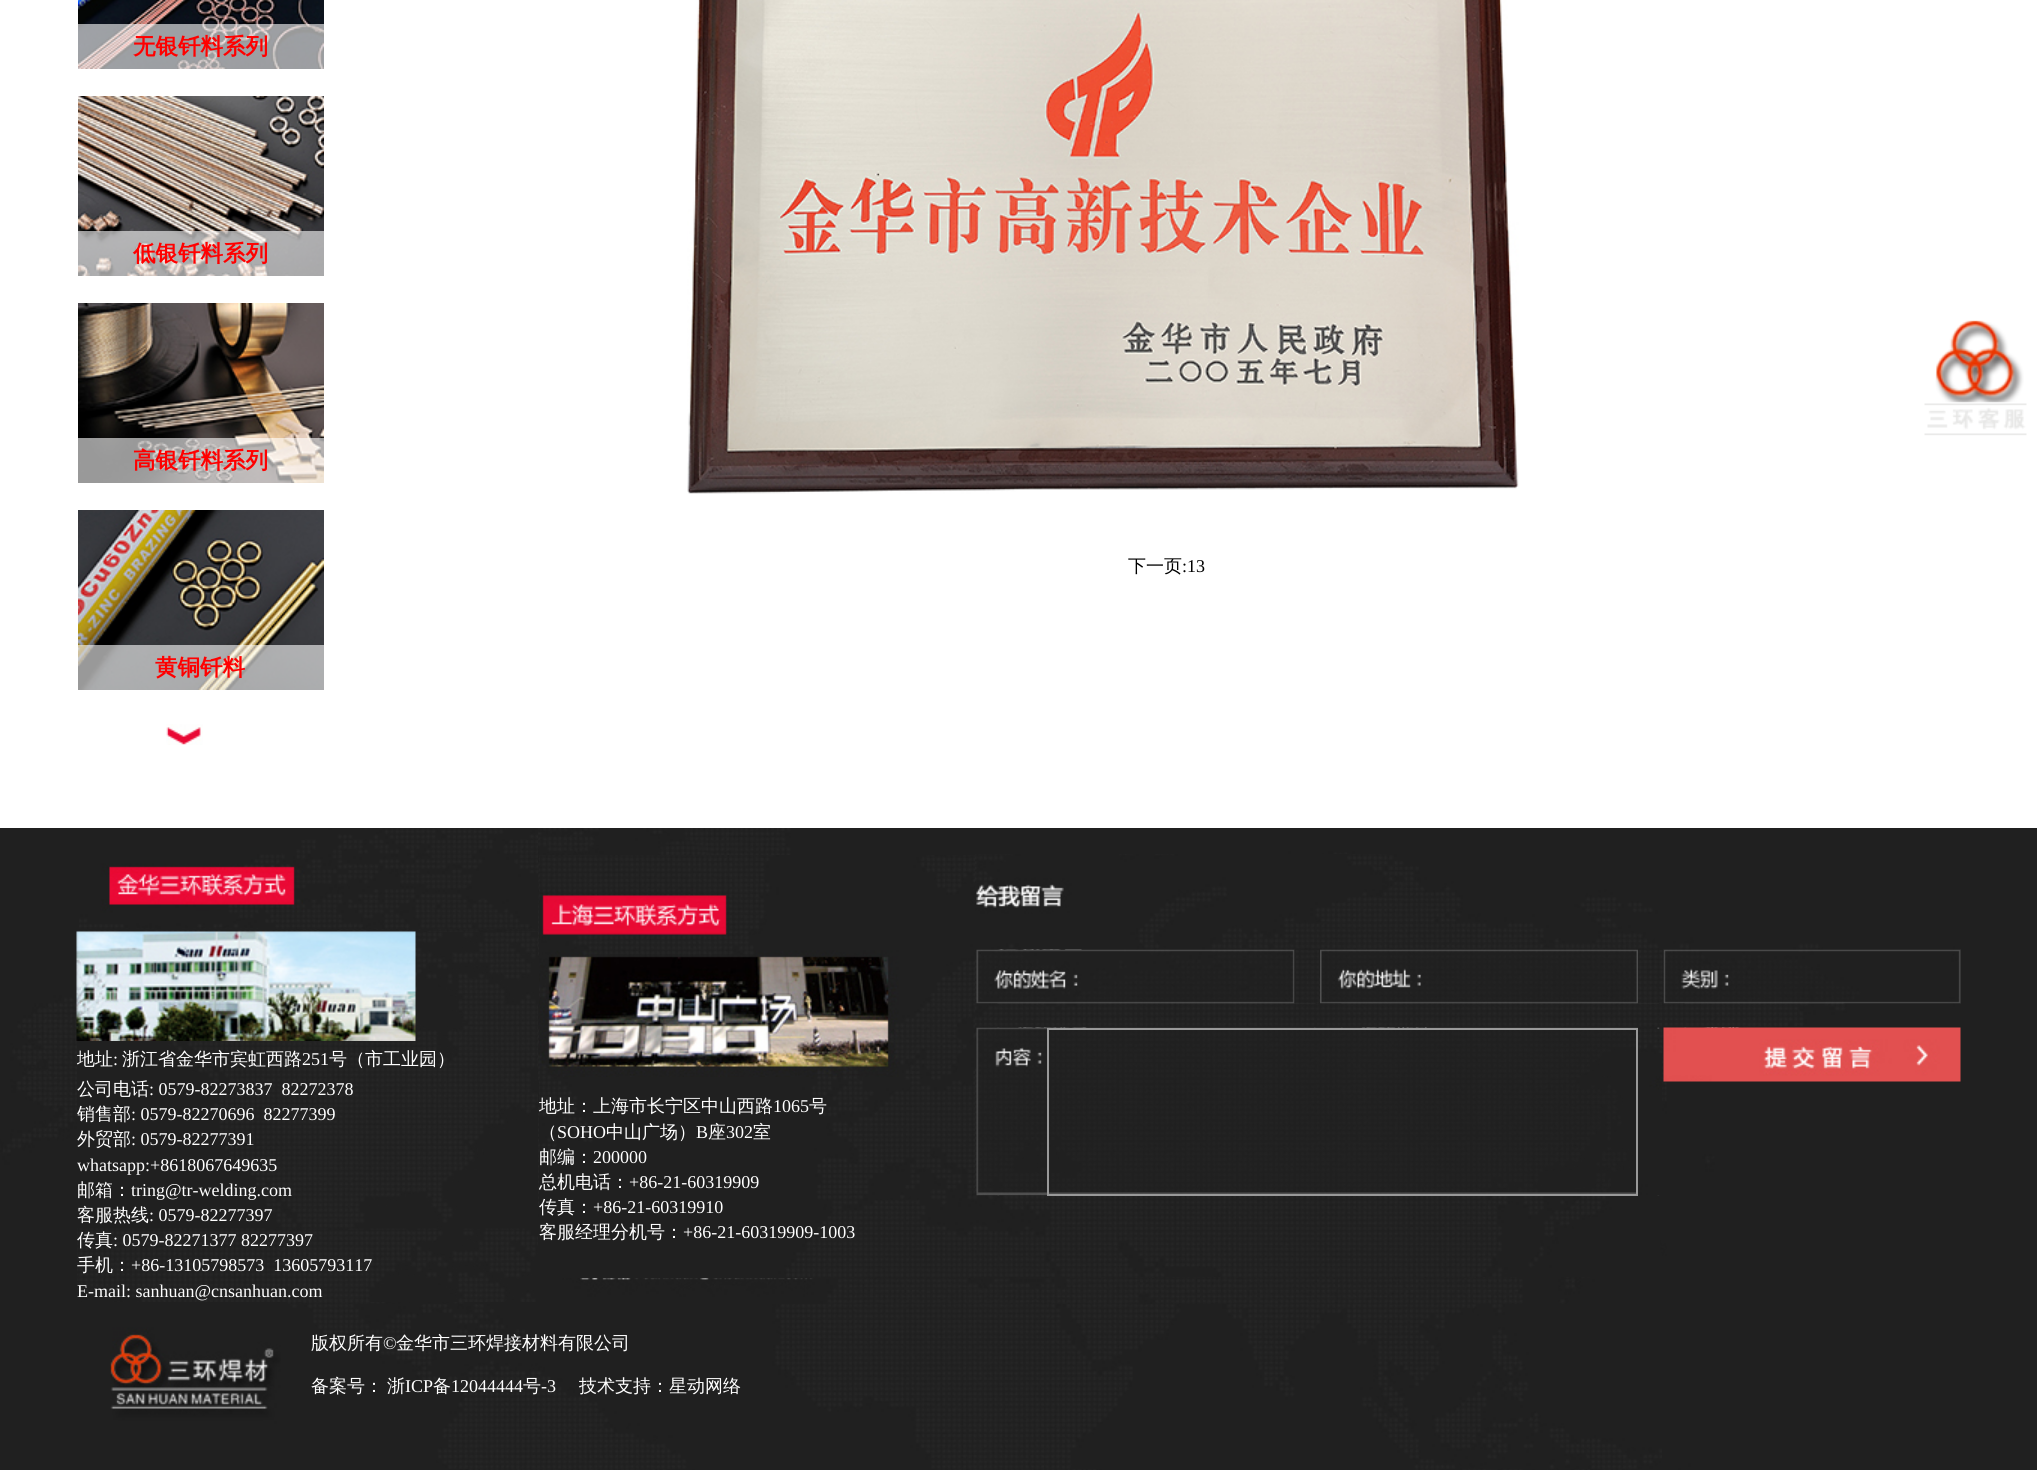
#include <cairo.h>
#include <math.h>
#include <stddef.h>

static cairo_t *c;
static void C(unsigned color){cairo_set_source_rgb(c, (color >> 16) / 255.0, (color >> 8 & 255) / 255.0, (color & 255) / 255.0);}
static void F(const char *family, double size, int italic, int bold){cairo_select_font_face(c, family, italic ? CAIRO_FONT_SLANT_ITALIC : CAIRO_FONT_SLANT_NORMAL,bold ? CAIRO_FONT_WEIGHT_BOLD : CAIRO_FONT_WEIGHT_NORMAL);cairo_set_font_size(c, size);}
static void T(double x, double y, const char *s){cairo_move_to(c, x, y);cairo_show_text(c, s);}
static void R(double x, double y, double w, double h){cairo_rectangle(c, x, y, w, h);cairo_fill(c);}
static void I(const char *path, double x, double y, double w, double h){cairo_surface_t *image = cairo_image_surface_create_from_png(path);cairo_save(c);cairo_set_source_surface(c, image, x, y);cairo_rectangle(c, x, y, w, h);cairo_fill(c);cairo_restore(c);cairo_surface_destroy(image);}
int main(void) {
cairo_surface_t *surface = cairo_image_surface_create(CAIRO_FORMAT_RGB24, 2037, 1470);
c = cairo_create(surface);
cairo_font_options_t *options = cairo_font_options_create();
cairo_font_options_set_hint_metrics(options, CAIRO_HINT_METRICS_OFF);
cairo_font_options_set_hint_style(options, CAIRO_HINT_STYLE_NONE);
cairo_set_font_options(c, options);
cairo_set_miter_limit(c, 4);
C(0xffffff);
cairo_paint(c);
I("1.png",78,0,246,69);
cairo_set_source_rgba(c,1,1,1,0.6);
R(78,24,246,45);
F("WenQuanYi Zen Hei",22.5,0,1);
C(0xff0000);
T(133,54,"无银钎料系列");
I("2.png",78,96,246,180);
cairo_set_source_rgba(c,1,1,1,0.6);
R(78,231,246,45);
C(0xff0000);
T(133,261,"低银钎料系列");
I("3.png",78,303,246,180);
cairo_set_source_rgba(c,1,1,1,0.6);
R(78,438,246,45);
C(0xff0000);
T(133,468,"高银钎料系列");
I("4.png",78,510,246,180);
cairo_set_source_rgba(c,1,1,1,0.6);
R(78,645,246,45);
C(0xff0000);
T(155,675,"黄铜钎料");
I("5.png",166,724,37,21);
I("6.png",687,0,832,494);
F("WenQuanYi Zen Hei Medium",18,0,0);
C(0x000000);
T(1128,572,"下一页");
F("Liberation Serif",18,0,0);
T(1182,572,":13");
I("7.png",1924,320,103,116);
I("8.png",0,828,2037,642);
I("9.png",79,828,459,101);
I("10.png",77,932,461,370);
I("11.png",76,930,341,111);
F("WenQuanYi Zen Hei Medium",18,0,0);
C(0xffffff);
T(77,1065,"地址");
F("Liberation Serif",18,0,0);
T(113,1065,":");
F("WenQuanYi Zen Hei Medium",18,0,0);
T(122,1065,"浙江省金华市宾虹西路");
F("Liberation Serif",18,0,0);
T(302,1065,"251");
F("WenQuanYi Zen Hei Medium",18,0,0);
T(329,1065,"号（市工业园）");
T(77,1095,"公司电话");
F("Liberation Serif",18,0,0);
T(149,1095,": 0579-82273837  82272378");
F("WenQuanYi Zen Hei Medium",18,0,0);
T(77,1120,"销售部");
F("Liberation Serif",18,0,0);
T(131,1120,": 0579-82270696  82277399");
F("WenQuanYi Zen Hei Medium",18,0,0);
T(77,1145,"外贸部");
F("Liberation Serif",18,0,0);
T(131,1145,": 0579-82277391");
T(77,1171,"whatsapp:+8618067649635");
F("WenQuanYi Zen Hei Medium",18,0,0);
T(77,1196,"邮箱：");
F("Liberation Serif",18,0,0);
T(131,1196,"tring@tr-welding.com");
F("WenQuanYi Zen Hei Medium",18,0,0);
T(77,1221,"客服热线");
F("Liberation Serif",18,0,0);
T(149,1221,": 0579-82277397");
F("WenQuanYi Zen Hei Medium",18,0,0);
T(77,1246,"传真");
F("Liberation Serif",18,0,0);
T(113,1246,": 0579-82271377 82277397");
F("WenQuanYi Zen Hei Medium",18,0,0);
T(77,1271,"手机：");
F("Liberation Serif",18,0,0);
T(131,1271,"+86-13105798573  13605793117");
T(77,1297,"E-mail: sanhuan@cnsanhuan.com");
I("12.png",539,855,436,222);
I("13.png",539,1077,436,201);
F("WenQuanYi Zen Hei Medium",18,0,0);
T(539,1112,"地址：上海市长宁区中山西路");
F("Liberation Serif",18,0,0);
T(773,1112,"1065");
F("WenQuanYi Zen Hei Medium",18,0,0);
T(809,1112,"号");
T(539,1138,"（");
F("Liberation Serif",18,0,0);
T(557,1138,"SOHO");
F("WenQuanYi Zen Hei Medium",18,0,0);
T(606,1138,"中山广场）");
F("Liberation Serif",18,0,0);
T(696,1138,"B");
F("WenQuanYi Zen Hei Medium",18,0,0);
T(708,1138,"座");
F("Liberation Serif",18,0,0);
T(726,1138,"302");
F("WenQuanYi Zen Hei Medium",18,0,0);
T(753,1138,"室");
T(539,1163,"邮编：");
F("Liberation Serif",18,0,0);
T(593,1163,"200000");
F("WenQuanYi Zen Hei Medium",18,0,0);
T(539,1188,"总机电话：");
F("Liberation Serif",18,0,0);
T(629,1188,"+86-21-60319909");
F("WenQuanYi Zen Hei Medium",18,0,0);
T(539,1213,"传真：");
F("Liberation Serif",18,0,0);
T(593,1213,"+86-21-60319910");
F("WenQuanYi Zen Hei Medium",18,0,0);
T(539,1238,"客服经理分机号：");
F("Liberation Serif",18,0,0);
T(683,1238,"+86-21-60319909-1003");
I("15.png",975,949,320,55);
I("17.png",1320,949,318,55);
I("19.png",1663,949,298,55);
I("14.png",975,854,985,96);
I("16.png",1294,950,25,54);
I("18.png",1638,950,26,54);
I("21.png",975,1027,663,169);
I("20.png",975,1003,985,25);
I("22.png",1638,1029,24,167);
I("24.png",975,1195,685,82);
cairo_rectangle(c,1048,1029,589,166);
C(0x999999);
cairo_stroke(c);
I("23.png",1663,1027,298,55);
I("25.png",110,1304,1552,165);
F("WenQuanYi Zen Hei Medium",18,0,0);
C(0xffffff);
T(311,1349,"版权所有");
F("Liberation Serif",18,0,0);
T(383,1349,"©");
F("WenQuanYi Zen Hei Medium",18,0,0);
T(396,1349,"金华市三环焊接材料有限公司");
T(311,1392,"备案号：");
T(387,1392,"浙");
F("Liberation Serif",18,0,0);
T(405,1392,"ICP");
F("WenQuanYi Zen Hei Medium",18,0,0);
T(433,1392,"备");
F("Liberation Serif",18,0,0);
T(451,1392,"12044444");
F("WenQuanYi Zen Hei Medium",18,0,0);
T(523,1392,"号");
F("Liberation Serif",18,0,0);
T(541,1392,"-3");
F("WenQuanYi Zen Hei Medium",18,0,0);
T(579,1392,"技术支持：星动网络");
cairo_surface_write_to_png(surface, "o.png");
cairo_font_options_destroy(options);
cairo_destroy(c);
cairo_surface_destroy(surface);
return 0;
}
